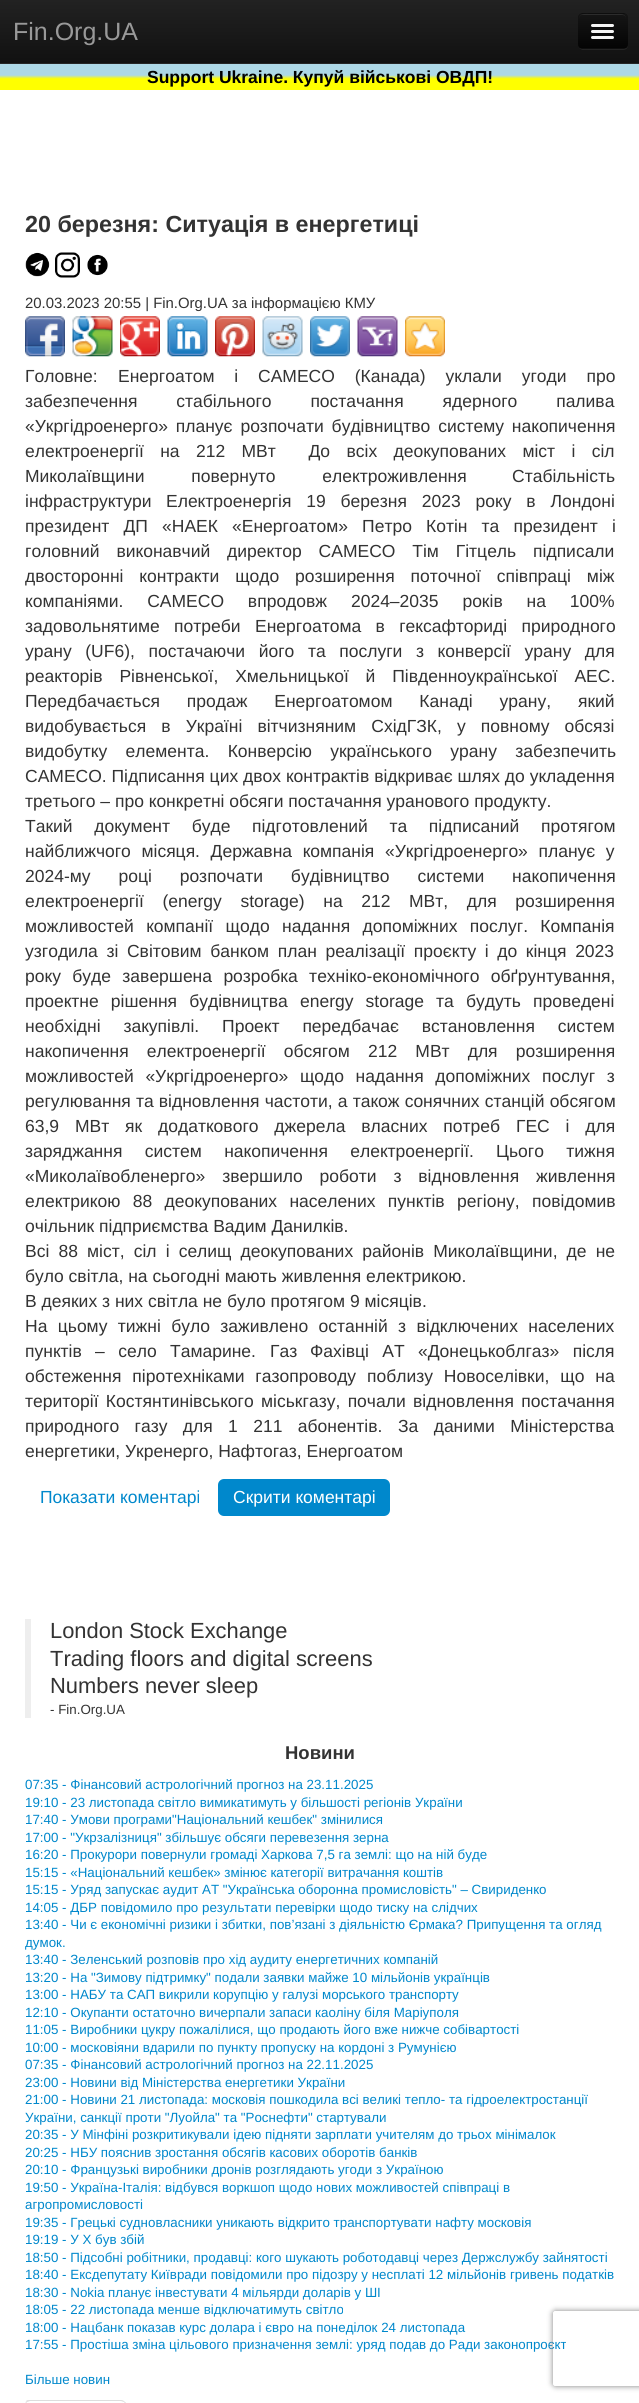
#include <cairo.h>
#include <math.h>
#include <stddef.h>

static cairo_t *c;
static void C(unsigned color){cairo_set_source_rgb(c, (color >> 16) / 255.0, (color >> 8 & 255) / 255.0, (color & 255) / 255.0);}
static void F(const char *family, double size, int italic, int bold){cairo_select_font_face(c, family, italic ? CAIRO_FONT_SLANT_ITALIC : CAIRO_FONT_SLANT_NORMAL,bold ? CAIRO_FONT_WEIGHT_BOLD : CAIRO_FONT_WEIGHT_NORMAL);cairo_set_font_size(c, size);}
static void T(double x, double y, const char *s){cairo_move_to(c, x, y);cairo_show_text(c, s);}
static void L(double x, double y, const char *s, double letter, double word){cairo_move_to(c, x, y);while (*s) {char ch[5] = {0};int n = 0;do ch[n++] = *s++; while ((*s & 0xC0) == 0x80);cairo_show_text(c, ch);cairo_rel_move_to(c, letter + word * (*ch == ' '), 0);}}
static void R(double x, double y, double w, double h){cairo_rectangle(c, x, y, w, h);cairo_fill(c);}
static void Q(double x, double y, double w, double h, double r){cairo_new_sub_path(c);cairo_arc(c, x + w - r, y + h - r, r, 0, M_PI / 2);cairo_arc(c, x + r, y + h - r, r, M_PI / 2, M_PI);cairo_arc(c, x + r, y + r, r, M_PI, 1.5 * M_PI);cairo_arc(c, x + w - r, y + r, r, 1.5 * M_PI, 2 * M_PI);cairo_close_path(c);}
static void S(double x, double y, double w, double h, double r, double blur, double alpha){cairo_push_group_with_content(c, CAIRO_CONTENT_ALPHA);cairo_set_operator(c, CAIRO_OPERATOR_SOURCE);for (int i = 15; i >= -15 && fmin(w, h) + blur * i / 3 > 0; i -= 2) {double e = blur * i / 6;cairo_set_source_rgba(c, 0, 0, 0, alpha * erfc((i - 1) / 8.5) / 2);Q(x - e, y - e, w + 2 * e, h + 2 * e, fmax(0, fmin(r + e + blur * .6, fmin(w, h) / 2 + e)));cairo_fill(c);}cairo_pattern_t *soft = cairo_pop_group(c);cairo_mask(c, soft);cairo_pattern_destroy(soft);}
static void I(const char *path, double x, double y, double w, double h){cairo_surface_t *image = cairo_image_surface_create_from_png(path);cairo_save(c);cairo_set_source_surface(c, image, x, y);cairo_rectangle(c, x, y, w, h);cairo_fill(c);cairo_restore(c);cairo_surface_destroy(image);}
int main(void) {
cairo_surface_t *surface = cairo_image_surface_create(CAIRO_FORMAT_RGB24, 639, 2403);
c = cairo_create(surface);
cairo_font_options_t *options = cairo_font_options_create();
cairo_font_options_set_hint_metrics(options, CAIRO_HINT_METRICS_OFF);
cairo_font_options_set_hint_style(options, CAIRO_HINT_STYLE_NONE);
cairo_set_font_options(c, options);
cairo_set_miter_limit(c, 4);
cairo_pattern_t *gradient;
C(0xffffff);
cairo_paint(c);
gradient = cairo_pattern_create_linear(320,0,320,63);
cairo_pattern_add_color_stop_rgba(gradient,0,0.133,0.133,0.133,1);
cairo_pattern_add_color_stop_rgba(gradient,1,0.067,0.067,0.067,1);
cairo_set_source(c,gradient);
cairo_pattern_destroy(gradient);
R(0,0,639,63);
C(0x252525);
R(0,63,639,1);
F("Liberation Sans",25,0,0);
C(0x999999);
T(13,40,"Fin.Org.UA");
cairo_set_source_rgba(c,1,1,1,0.07);
cairo_new_path(c);
cairo_move_to(c,578,46);
cairo_curve_to(c,579,48,581,50,583,50);
cairo_line_to(c,623,50);
cairo_curve_to(c,626,50,628,48,628,45);
cairo_line_to(c,628,19);
cairo_line_to(c,627,17);
cairo_line_to(c,628,35);
cairo_curve_to(c,628,48,629,49,616,49);
cairo_line_to(c,589,49);
cairo_curve_to(c,586,49,580,50,578,46);
cairo_close_path(c);
cairo_fill(c);
C(0x0e0e0e);
Q(578,13,50,36,5);
cairo_fill(c);
cairo_save(c);
Q(578,13,50,36,5);
cairo_clip(c);
gradient = cairo_pattern_create_linear(603,14,603,48);
cairo_pattern_add_color_stop_rgba(gradient,0,0.082,0.082,0.082,1);
cairo_pattern_add_color_stop_rgba(gradient,1,0.016,0.016,0.016,1);
cairo_set_source(c,gradient);
cairo_pattern_destroy(gradient);
R(578,14,50,34);
cairo_restore(c);
C(0x2c2c2c);
cairo_new_path(c);
cairo_move_to(c,582,15);
cairo_line_to(c,622,15);
cairo_curve_to(c,625,15,626,17,626,19);
cairo_curve_to(c,626,13,620,14,616,14);
cairo_line_to(c,590,14);
cairo_curve_to(c,585,14,579,13,579,19);
cairo_curve_to(c,579,17,580,15,582,15);
cairo_close_path(c);
cairo_fill(c);
C(0x0b0b0b);
cairo_new_path(c);
cairo_move_to(c,591.5,25.5);
cairo_line_to(c,591,27);
cairo_curve_to(c,591.5,29,595,28,596,28);
cairo_line_to(c,609,28);
cairo_curve_to(c,610,28,613.5,29,614,27);
cairo_line_to(c,613.5,25.5);
cairo_curve_to(c,613.5,26,613,26,612.5,26);
cairo_line_to(c,592.5,26);
cairo_curve_to(c,592,26,591.5,26,591.5,25.5);
cairo_close_path(c);
cairo_fill(c);
C(0xf5f5f5);
Q(591,24,23,3,1.5);
cairo_fill(c);
C(0x080808);
cairo_new_path(c);
cairo_move_to(c,591.5,31.5);
cairo_curve_to(c,589,34.5,595.5,34,596,34);
cairo_line_to(c,609,34);
cairo_curve_to(c,609.5,34,616,34.5,613.5,31.5);
cairo_curve_to(c,613.5,32,613,32.5,612.5,32.5);
cairo_line_to(c,592.5,32.5);
cairo_curve_to(c,592,32.5,591.5,32,591.5,31.5);
cairo_close_path(c);
cairo_fill(c);
C(0xf5f5f5);
Q(591,30,23,3,1.5);
cairo_fill(c);
Q(591,36,23,3,1.5);
cairo_fill(c);
gradient = cairo_pattern_create_linear(320,64,320,90);
cairo_pattern_add_color_stop_rgba(gradient,0,0.678,0.847,0.902,1);
cairo_pattern_add_color_stop_rgba(gradient,.43,0.678,0.847,0.902,1);
cairo_pattern_add_color_stop_rgba(gradient,.57,1,1,0,1);
cairo_pattern_add_color_stop_rgba(gradient,1,1,1,0,1);
cairo_set_source(c,gradient);
cairo_pattern_destroy(gradient);
R(0,64,639,26);
F("Liberation Sans",17.5,0,1);
C(0x000000);
T(147,83,"Support Ukraine. Купуй військові ОВДП!");
F("Liberation Sans",23.3,0,1);
C(0x333333);
T(25,232,"20 березня: Ситуація в енергетиці");
I("1.png",25,252,25,25);
I("2.png",55,252,25,26);
I("3.png",87,254,21,22);
F("Liberation Sans",14.9,0,0);
T(25,308,"20.03.2023 20:55 | Fin.Org.UA за інформацією КМУ");
I("4.png",25,316,40,41);
I("5.png",72,316,41,41);
I("6.png",120,316,40,41);
I("7.png",167,316,41,41);
I("8.png",215,316,40,41);
I("9.png",262,316,41,41);
I("10.png",310,316,40,41);
I("11.png",357,316,41,41);
I("12.png",405,316,40,41);
F("Liberation Sans",17.5,0,0);
T(25,382,"Головне:");
L(118,382,"Енергоатом і CAMECO (Канада) уклали угоди про",0,15);
L(25,407,"забезпечення стабільного постачання ядерного палива",0,34);
L(25,432,"«Укргідроенерго» планує розпочати будівництво систему накопичення",0,3);
L(25,457,"електроенергії на 212 МВт  До всіх деокупованих міст і сіл",0,11.5);
L(25,482,"Миколаївщини повернуто електроживлення",0,42);
T(512,482,"Стабільність");
T(25,507,"інфраструктури");
L(166,507,"Електроенергія 19 березня 2023 року в Лондоні",0,10);
L(25,532,"президент ДП «НАЕК «Енергоатом» Петро Котін та президент і",0,9.25);
L(25,557,"головний виконавчий директор CAMECO Тім Гітцель підписали",0,12);
L(25,582,"двосторонні контракти щодо розширення поточної співпраці між",0,11);
L(25,607,"компаніями. CAMECO впродовж 2024–2035 років на 100%",0,19);
L(25,632,"задовольнятиме потреби Енергоатома в гексафториді природного",0,9.5);
L(25,657,"урану (UF6), постачаючи його та послуги з конверсії урану для",0,8.75);
L(25,682,"реакторів Рівненської, Хмельницької й Південноукраїнської АЕС.",0,12);
L(25,707,"Передбачається продаж Енергоатомом Канаді урану, який",0,22);
L(25,732,"видобувається в Україні вітчизняним СхідГЗК, у повному обсязі",0,10.25);
L(25,757,"видобутку елемента. Конверсію українського урану забезпечить",0,13.5);
T(25,782,"CAMECO. Підписання цих двох контрактів відкриває шлях до укладення");
T(25,807,"третього – про конкретні обсяги постачання уранового продукту.");
L(25,832,"Такий документ буде підготовлений та підписаний протягом",0,16.75);
L(25,857,"найближчого місяця. Державна компанія «Укргідроенерго» планує у",0,5.75);
L(25,882,"2024-му році розпочати будівництво системи накопичення",0,23);
L(25,907,"електроенергії (energy storage) на 212 МВт, для розширення",0,13.75);
L(25,932,"можливостей компанії щодо надання допоміжних послуг. Компанія",0,7.5);
L(25,957,"узгодила зі Світовим банком план реалізації проєкту і до кінця 2023",0,3.75);
L(25,982,"року буде завершена розробка техніко-економічного обґрунтування,",0,6.5);
L(25,1007,"проектне рішення будівництва energy storage та будуть проведені",0,7.25);
L(25,1032,"необхідні закупівлі. Проект передбачає встановлення систем",0,18);
L(25,1057,"накопичення електроенергії обсягом 212 МВт для розширення",0,13.25);
L(25,1082,"можливостей «Укргідроенерго» щодо надання допоміжних послуг з",0,6.75);
L(25,1107,"регулювання та відновлення частоти, а також сонячних станцій обсягом",0,.25);
L(25,1132,"63,9 МВт як додаткового джерела власних потреб ГЕС і для",0,11);
L(25,1157,"заряджання систем накопичення електроенергії.",0,17.5);
L(496,1157,"Цього тижня",0,17.5);
L(25,1182,"«Миколаївобленерго» звершило роботи з відновлення живлення",0,12);
L(25,1207,"електрикою 88 деокупованих населених пунктів регіону, повідомив",0,7.5);
T(25,1232,"очільник підприємства Вадим Данилків.");
L(25,1257,"Всі 88 міст, сіл і селищ деокупованих районів Миколаївщини, де не",0,4.25);
T(25,1282,"було світла, на сьогодні мають живлення електрикою.");
T(25,1307,"В деяких з них світла не було протягом 9 місяців.");
L(25,1332,"На цьому тижні було заживлено останній з відключених населених",0,5.5);
L(25,1357,"пунктів – село Тамарине.",0,8.5);
T(270,1357,"Газ");
L(310,1357,"Фахівці АТ «Донецькоблгаз» після",0,8.5);
L(25,1382,"обстеження піротехніками газопроводу поблизу Новоселівки, що на",0,6);
L(25,1407,"території Костянтинівського міськгазу, почали відновлення постачання",0,2.5);
L(25,1432,"природного газу для 1 211 абонентів.",0,10.5);
L(398,1432,"За даними Міністерства",0,10.5);
T(25,1457,"енергетики, Укренерго, Нафтогаз, Енергоатом");
C(0x0088cc);
T(40,1503,"Показати коментарі");
Q(218,1479,172,37,6);
cairo_fill(c);
C(0xffffff);
T(233,1503,"Скрити коментарі");
C(0xeeeeee);
R(25,1619,6,99);
F("Liberation Sans",21.9,0,0);
C(0x333333);
T(50,1638,"London Stock Exchange");
T(50,1666,"Trading floors and digital screens");
T(50,1693,"Numbers never sleep");
F("Liberation Sans",13.35,0,0);
T(50,1714,"- Fin.Org.UA");
F("Liberation Sans",18.5,0,1);
T(285,1759,"Новини");
F("Liberation Sans",13.35,0,0);
C(0x0088cc);
T(25,1789,"07:35 - Фінансовий астрологічний прогноз на 23.11.2025");
T(25,1807,"19:10 - 23 листопада світло вимикатимуть у більшості регіонів України");
T(25,1824,"17:40 - Умови програми\"Національний кешбек\" змінилися");
T(25,1842,"17:00 - \"Укрзалізниця\" збільшує обсяги перевезення зерна");
T(25,1859,"16:20 - Прокурори повернули громаді Харкова 7,5 га землі: що на ній буде");
T(25,1877,"15:15 - «Національний кешбек» змінює категорії витрачання коштів");
T(25,1894,"15:15 - Уряд запускає аудит АТ \"Українська оборонна промисловість\" – Свириденко");
T(25,1912,"14:05 - ДБР повідомило про результати перевірки щодо тиску на слідчих");
T(25,1929,"13:40 - Чи є економічні ризики і збитки, пов’язані з діяльністю Єрмака? Припущення та огляд");
T(25,1947,"думок.");
T(25,1964,"13:40 - Зеленський розповів про хід аудиту енергетичних компаній");
T(25,1982,"13:20 - На \"Зимову підтримку\" подали заявки майже 10 мільйонів українців");
T(25,1999,"13:00 - НАБУ та САП викрили корупцію у галузі морського транспорту");
T(25,2017,"12:10 - Окупанти остаточно вичерпали запаси каоліну біля Маріуполя");
T(25,2034,"11:05 - Виробники цукру пожалілися, що продають його вже нижче собівартості");
T(25,2052,"10:00 - московіяни вдарили по пункту пропуску на кордоні з Румунією");
T(25,2069,"07:35 - Фінансовий астрологічний прогноз на 22.11.2025");
T(25,2087,"23:00 - Новини від Міністерства енергетики України");
T(25,2104,"21:00 - Новини 21 листопада: московія пошкодила всі великі тепло- та гідроелектростанції");
T(25,2122,"України, санкції проти \"Луойла\" та \"Роснефти\" стартували");
T(25,2139,"20:35 - У Мінфіні розкритикували ідею підняти зарплати учителям до трьох мінімалок");
T(25,2157,"20:25 - НБУ пояснив зростання обсягів касових оборотів банків");
T(25,2174,"20:10 - Французькі виробники дронів розглядають угоди з Україною");
T(25,2192,"19:50 - Україна-Італія: відбувся воркшоп щодо нових можливостей співпраці в");
T(25,2209,"агропромисловості");
T(25,2227,"19:35 - Грецькі судновласники уникають відкрито транспортувати нафту московія");
T(25,2244,"19:19 - У X був збій");
T(25,2262,"18:50 - Підсобні робітники, продавці: кого шукають роботодавці через Держслужбу зайнятості");
T(25,2279,"18:40 - Ексдепутату Київради повідомили про підозру у несплаті 12 мільйонів гривень податків");
T(25,2297,"18:30 - Nokia планує інвестувати 4 мільярди доларів у ШІ");
T(25,2314,"18:05 - 22 листопада менше відключатимуть світло");
T(25,2332,"18:00 - Нацбанк показав курс долара і євро на понеділок 24 листопада");
T(25,2349,"17:55 - Простіша зміна цільового призначення землі: уряд подав до Ради законопроєкт");
T(25,2384,"Більше новин");
C(0xdddddd);
cairo_new_path(c);
cairo_move_to(c,30,2400);
cairo_curve_to(c,28,2400,27,2400,26,2401);
cairo_line_to(c,27,2402);
cairo_line_to(c,30,2401);
cairo_line_to(c,121,2401);
cairo_line_to(c,124,2402);
cairo_line_to(c,125,2402);
cairo_curve_to(c,124,2401,123,2400,121,2400);
cairo_close_path(c);
cairo_fill(c);
cairo_new_path(c);
cairo_move_to(c,125,2402);
cairo_curve_to(c,126,2402,126,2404,126,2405);
cairo_line_to(c,126,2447);
cairo_line_to(c,125,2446);
cairo_line_to(c,125,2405);
cairo_curve_to(c,125,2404,125,2403,124,2402);
cairo_close_path(c);
cairo_fill(c);
cairo_new_path(c);
cairo_move_to(c,25,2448);
cairo_line_to(c,26,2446);
cairo_line_to(c,26,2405);
cairo_curve_to(c,26,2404,26,2403,27,2402);
cairo_line_to(c,26,2401);
cairo_curve_to(c,26,2402,25,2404,25,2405);
cairo_close_path(c);
cairo_fill(c);
cairo_save(c);
cairo_set_fill_rule(c,CAIRO_FILL_RULE_EVEN_ODD);
cairo_new_path(c);
cairo_move_to(c,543,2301);
cairo_line_to(c,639,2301);
cairo_line_to(c,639,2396);
cairo_line_to(c,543,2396);
cairo_close_path(c);
cairo_move_to(c,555.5,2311);
cairo_line_to(c,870.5,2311);
cairo_curve_to(c,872,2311,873,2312,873,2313.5);
cairo_line_to(c,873,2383.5);
cairo_curve_to(c,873,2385,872,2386,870.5,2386);
cairo_line_to(c,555.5,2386);
cairo_curve_to(c,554,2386,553,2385,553,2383.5);
cairo_line_to(c,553,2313.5);
cairo_curve_to(c,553,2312,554,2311,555.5,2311);
cairo_close_path(c);
cairo_clip(c);
C(0x808080);
S(553,2311,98,75,2.5,3,1);
cairo_restore(c);
cairo_surface_write_to_png(surface, "o.png");
cairo_font_options_destroy(options);
cairo_destroy(c);
cairo_surface_destroy(surface);
return 0;
}
